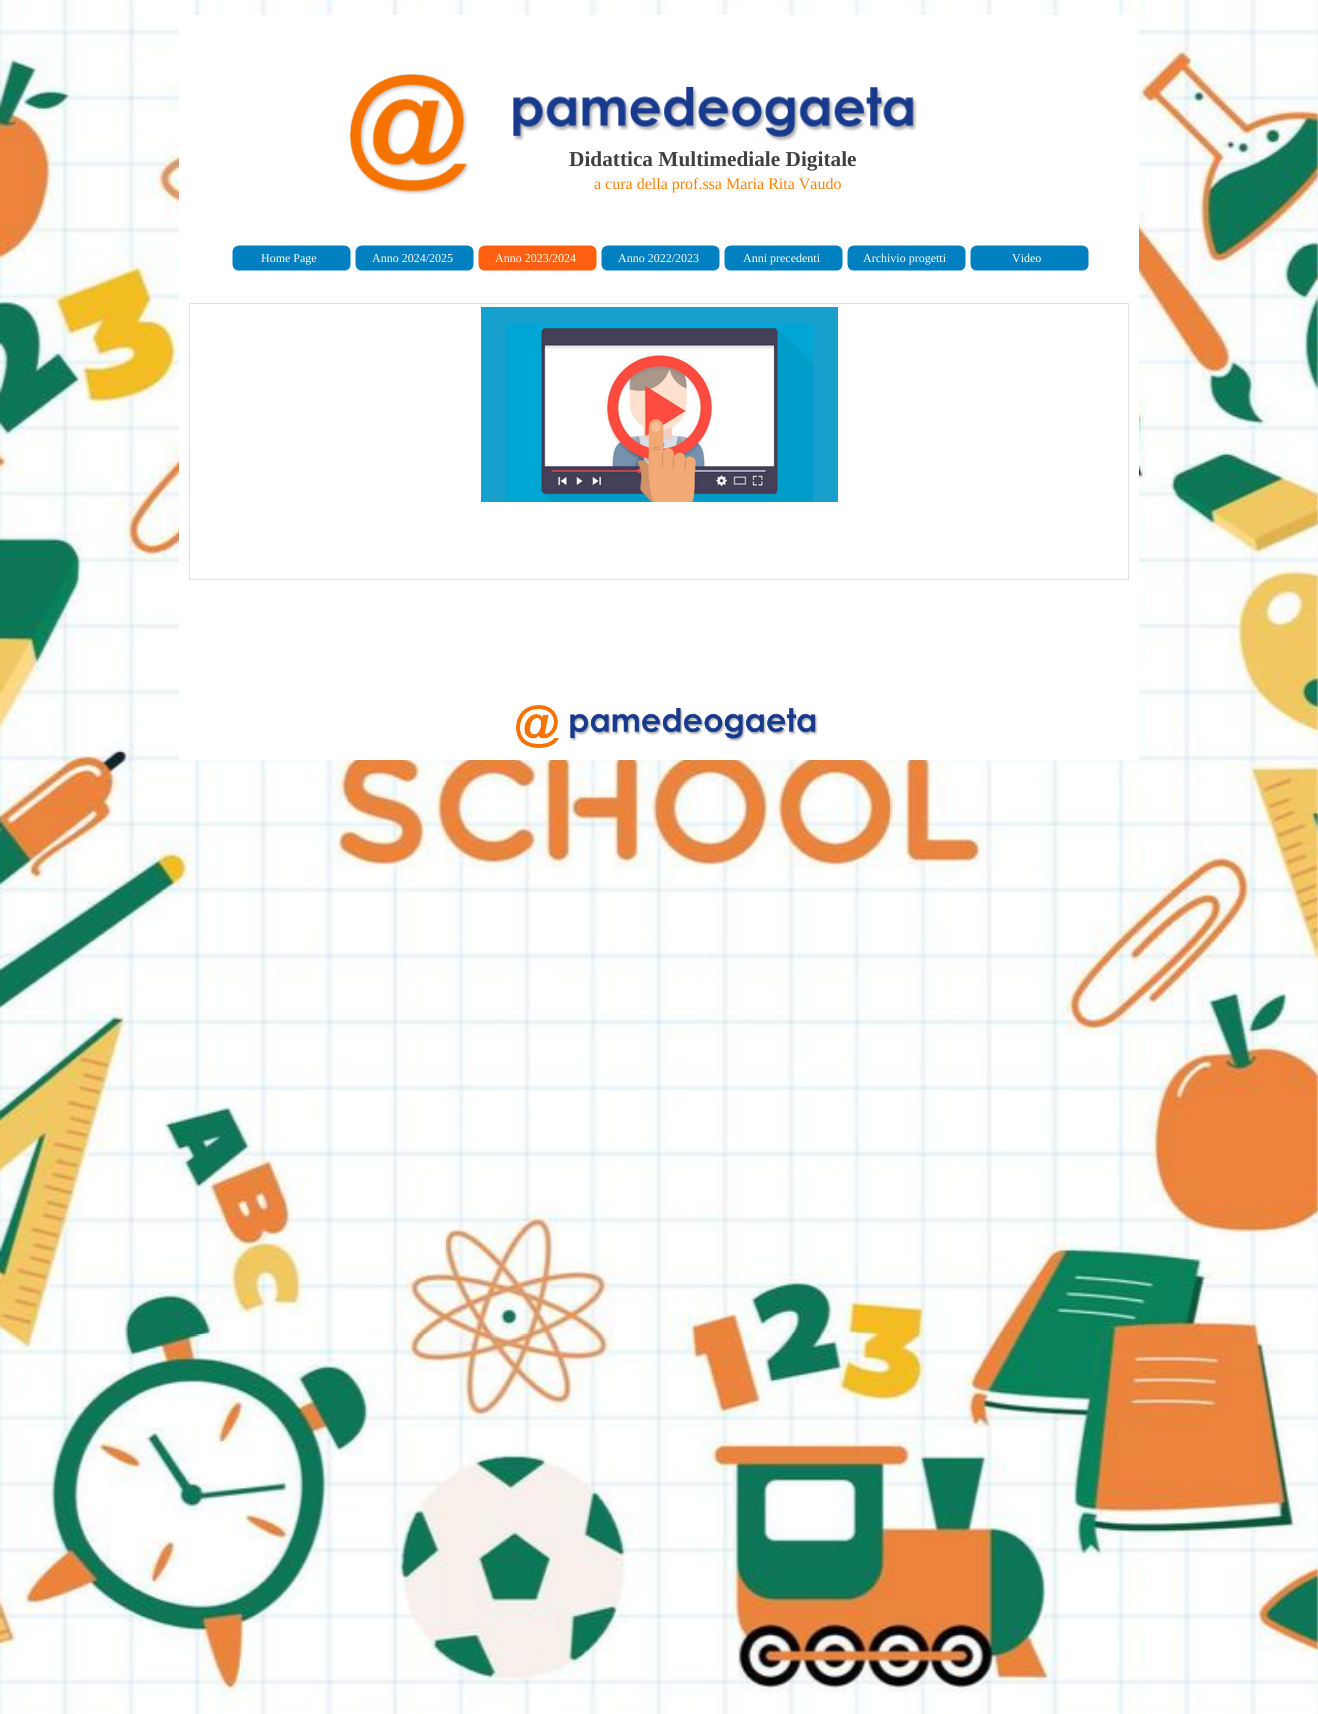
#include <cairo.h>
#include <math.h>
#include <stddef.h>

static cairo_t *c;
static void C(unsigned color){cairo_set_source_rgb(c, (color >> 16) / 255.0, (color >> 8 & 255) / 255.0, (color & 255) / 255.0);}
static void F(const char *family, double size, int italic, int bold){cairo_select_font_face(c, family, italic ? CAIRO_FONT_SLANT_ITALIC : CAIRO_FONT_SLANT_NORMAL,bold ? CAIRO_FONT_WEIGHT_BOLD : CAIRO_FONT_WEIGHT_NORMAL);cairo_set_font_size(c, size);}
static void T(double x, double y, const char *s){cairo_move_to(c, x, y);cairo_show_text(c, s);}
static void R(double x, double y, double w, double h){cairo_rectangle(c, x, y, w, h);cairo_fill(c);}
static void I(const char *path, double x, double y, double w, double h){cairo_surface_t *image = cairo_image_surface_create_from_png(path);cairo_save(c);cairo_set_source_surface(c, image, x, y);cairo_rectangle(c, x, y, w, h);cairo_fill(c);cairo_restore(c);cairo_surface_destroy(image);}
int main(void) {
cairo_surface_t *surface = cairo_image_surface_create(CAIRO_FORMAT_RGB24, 1318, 1714);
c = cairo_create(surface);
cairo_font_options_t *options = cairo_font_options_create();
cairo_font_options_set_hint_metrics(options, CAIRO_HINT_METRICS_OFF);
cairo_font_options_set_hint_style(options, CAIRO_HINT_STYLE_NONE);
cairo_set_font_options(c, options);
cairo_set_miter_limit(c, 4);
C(0xffffff);
cairo_paint(c);
I("1.png",0,0,1318,1714);
C(0xffffff);
R(179,15,960,200);
I("2.png",350,74,120,121);
I("3.png",513,86,404,56);
F("Liberation Serif",21.3,0,1);
C(0x404040);
T(569,166,"Didattica Multimediale Digitale");
F("Liberation Serif",16,0,0);
C(0xff8000);
T(594,189,"a cura della prof.ssa Maria Rita Vaudo");
C(0xffffff);
R(179,215,960,545);
cairo_rectangle(c,189.5,303.5,939,276);
C(0xe0e0e0);
cairo_set_line_width(c,1);
cairo_stroke(c);
I("4.png",481,307,357,195);
I("5.png",232,245,119,26);
F("Liberation Serif",12,0,0);
C(0xffffff);
T(261,262,"Home Page");
I("5.png",355,245,119,26);
T(372,262,"Anno 2024/2025");
I("6.png",478,245,119,26);
T(495,262,"Anno 2023/2024");
I("5.png",601,245,119,26);
T(618,262,"Anno 2022/2023");
I("5.png",724,245,119,26);
T(743,262,"Anni precedenti");
I("5.png",847,245,119,26);
T(863,262,"Archivio progetti");
I("5.png",970,245,119,26);
T(1012,262,"Video");
I("7.png",516,705,43,43);
I("8.png",570,708,248,34);
cairo_surface_write_to_png(surface, "o.png");
cairo_font_options_destroy(options);
cairo_destroy(c);
cairo_surface_destroy(surface);
return 0;
}
